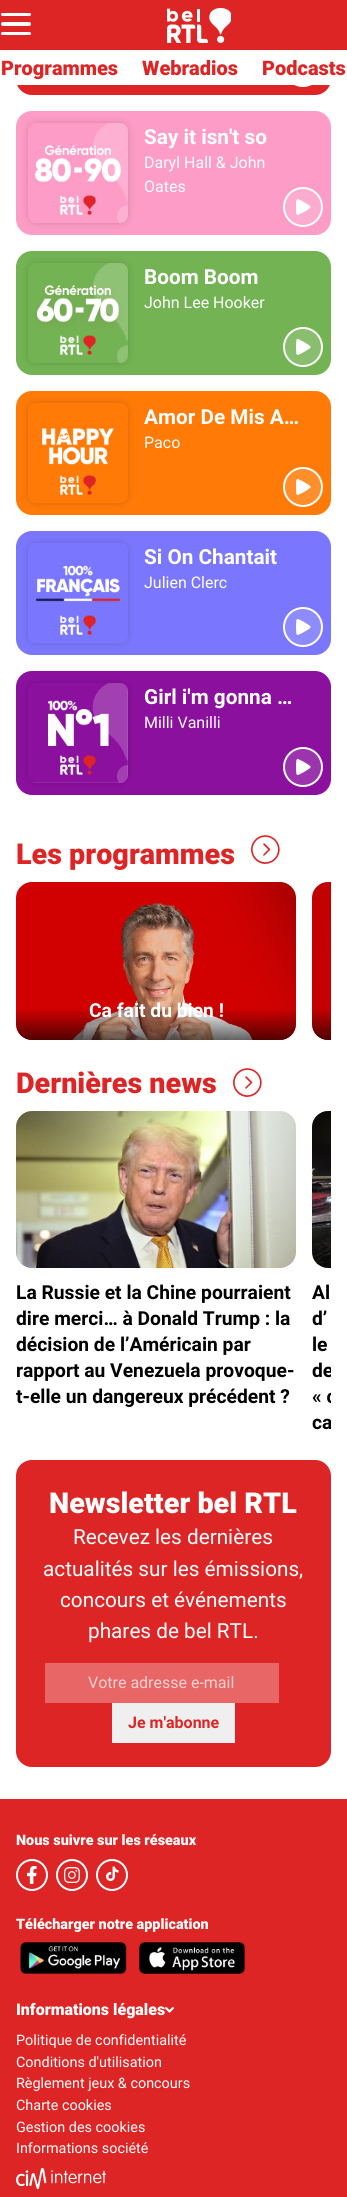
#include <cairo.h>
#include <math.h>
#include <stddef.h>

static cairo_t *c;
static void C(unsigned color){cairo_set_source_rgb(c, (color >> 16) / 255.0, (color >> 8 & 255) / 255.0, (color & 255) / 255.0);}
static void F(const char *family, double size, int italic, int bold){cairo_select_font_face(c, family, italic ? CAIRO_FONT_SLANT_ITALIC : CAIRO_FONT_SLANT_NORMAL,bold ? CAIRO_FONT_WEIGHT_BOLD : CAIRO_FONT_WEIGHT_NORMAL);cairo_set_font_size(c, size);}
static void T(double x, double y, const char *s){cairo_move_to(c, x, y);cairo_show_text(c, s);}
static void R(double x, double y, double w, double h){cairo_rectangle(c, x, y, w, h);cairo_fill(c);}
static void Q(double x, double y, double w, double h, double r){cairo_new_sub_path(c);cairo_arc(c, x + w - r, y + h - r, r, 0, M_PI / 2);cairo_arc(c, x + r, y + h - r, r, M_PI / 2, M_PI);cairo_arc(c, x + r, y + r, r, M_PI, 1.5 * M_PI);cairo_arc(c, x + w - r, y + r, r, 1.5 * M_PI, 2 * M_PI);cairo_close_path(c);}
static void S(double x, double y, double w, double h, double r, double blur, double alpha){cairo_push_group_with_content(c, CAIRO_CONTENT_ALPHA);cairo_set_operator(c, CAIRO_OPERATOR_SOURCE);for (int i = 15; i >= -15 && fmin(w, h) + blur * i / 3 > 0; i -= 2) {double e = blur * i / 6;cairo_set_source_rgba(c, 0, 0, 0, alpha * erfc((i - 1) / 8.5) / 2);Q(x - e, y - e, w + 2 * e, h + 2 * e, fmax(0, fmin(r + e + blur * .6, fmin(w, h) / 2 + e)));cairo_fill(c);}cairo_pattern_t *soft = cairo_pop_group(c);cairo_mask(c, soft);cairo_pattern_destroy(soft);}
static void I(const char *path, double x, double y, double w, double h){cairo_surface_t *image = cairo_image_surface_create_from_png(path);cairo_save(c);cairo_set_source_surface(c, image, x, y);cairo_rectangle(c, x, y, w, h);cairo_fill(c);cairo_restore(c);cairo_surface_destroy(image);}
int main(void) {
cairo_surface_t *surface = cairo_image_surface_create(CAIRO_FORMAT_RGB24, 347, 2197);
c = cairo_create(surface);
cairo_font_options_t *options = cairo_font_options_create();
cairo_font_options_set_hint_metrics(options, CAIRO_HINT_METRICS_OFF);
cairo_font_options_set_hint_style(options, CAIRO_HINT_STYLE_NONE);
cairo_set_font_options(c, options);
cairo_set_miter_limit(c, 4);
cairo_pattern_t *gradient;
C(0xffffff);
cairo_paint(c);
C(0xde2425);
Q(16,-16,315,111,16);
cairo_fill(c);
C(0x000000);
S(28,-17,100,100,8,4,.15);
cairo_arc(c,303,67,19,0,2 * M_PI);
C(0xffffff);
cairo_stroke(c);
C(0xde2525);
R(0,0,347,50);
C(0xffffff);
R(16,50,315,35);
Q(1,13,30,3,1.5);
cairo_fill(c);
Q(1,22,30,4,2);
cairo_fill(c);
Q(1,32,30,3,1.5);
cairo_fill(c);
I("1.png",167,8,64,35);
F("Roboto Black",20,0,0);
C(0xde2525);
T(1,75,"Programmes");
T(142,75,"Webradios");
T(262,75,"Podcasts");
C(0xfd9cc6);
Q(16,111,315,124,16);
cairo_fill(c);
C(0x000000);
S(28,123,100,100,8,4,.15);
I("2.png",28,123,100,100);
F("Roboto",20.75,0,1);
C(0xffffff);
T(144,144,"Say it isn't so");
F("Roboto",16,0,0);
T(144,168,"Daryl Hall & John");
T(144,192,"Oates");
C(0xfdabcf);
cairo_new_path(c);
cairo_arc(c,303,207,19,0,2 * M_PI);
cairo_fill_preserve(c);
C(0xffffff);
cairo_stroke(c);
I("3.png",296,199,15,16);
C(0x73b353);
Q(16,251,315,124,16);
cairo_fill(c);
cairo_save(c);
cairo_set_fill_rule(c,CAIRO_FILL_RULE_EVEN_ODD);
cairo_new_path(c);
cairo_move_to(c,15,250);
cairo_line_to(c,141,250);
cairo_line_to(c,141,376);
cairo_line_to(c,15,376);
cairo_close_path(c);
cairo_move_to(c,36,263);
cairo_line_to(c,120,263);
cairo_curve_to(c,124.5,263,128,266.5,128,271);
cairo_line_to(c,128,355);
cairo_curve_to(c,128,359.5,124.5,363,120,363);
cairo_line_to(c,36,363);
cairo_curve_to(c,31.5,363,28,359.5,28,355);
cairo_line_to(c,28,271);
cairo_curve_to(c,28,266.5,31.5,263,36,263);
cairo_close_path(c);
cairo_clip(c);
C(0x000000);
S(28,263,100,100,8,4,.15);
cairo_restore(c);
I("4.png",35,263,93,100);
F("Roboto",20.75,0,1);
C(0xffffff);
T(144,284,"Boom Boom");
F("Roboto",16,0,0);
T(144,308,"John Lee Hooker");
C(0x88be6d);
cairo_new_path(c);
cairo_arc(c,303,347,19,0,2 * M_PI);
cairo_fill_preserve(c);
C(0xffffff);
cairo_stroke(c);
I("5.png",296,339,15,16);
C(0xff7a07);
Q(16,391,315,124,16);
cairo_fill(c);
C(0x000000);
S(28,403,100,100,8,4,.15);
I("6.png",28,403,100,100);
F("Roboto",20.75,0,1);
C(0xffffff);
T(144,424,"Amor De Mis A…");
F("Roboto",16,0,0);
T(144,448,"Paco");
C(0xff8e2c);
cairo_new_path(c);
cairo_arc(c,303,487,19,0,2 * M_PI);
cairo_fill_preserve(c);
C(0xffffff);
cairo_stroke(c);
I("7.png",296,479,15,16);
C(0x7a77fe);
Q(16,531,315,124,16);
cairo_fill(c);
cairo_save(c);
cairo_set_fill_rule(c,CAIRO_FILL_RULE_EVEN_ODD);
cairo_new_path(c);
cairo_move_to(c,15,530);
cairo_line_to(c,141,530);
cairo_line_to(c,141,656);
cairo_line_to(c,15,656);
cairo_close_path(c);
cairo_move_to(c,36,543);
cairo_line_to(c,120,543);
cairo_curve_to(c,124.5,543,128,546.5,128,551);
cairo_line_to(c,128,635);
cairo_curve_to(c,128,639.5,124.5,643,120,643);
cairo_line_to(c,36,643);
cairo_curve_to(c,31.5,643,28,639.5,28,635);
cairo_line_to(c,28,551);
cairo_curve_to(c,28,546.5,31.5,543,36,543);
cairo_close_path(c);
cairo_clip(c);
C(0x000000);
S(28,543,100,100,8,4,.15);
cairo_restore(c);
I("8.png",36,565,85,70);
F("Roboto",20.75,0,1);
C(0xffffff);
T(144,564,"Si On Chantait");
F("Roboto",16,0,0);
T(144,588,"Julien Clerc");
C(0x8e8bfe);
cairo_new_path(c);
cairo_arc(c,303,627,19,0,2 * M_PI);
cairo_fill_preserve(c);
C(0xffffff);
cairo_stroke(c);
I("9.png",296,619,15,16);
C(0x8b109e);
Q(16,671,315,124,16);
cairo_fill(c);
cairo_save(c);
cairo_set_fill_rule(c,CAIRO_FILL_RULE_EVEN_ODD);
cairo_new_path(c);
cairo_move_to(c,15,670);
cairo_line_to(c,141,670);
cairo_line_to(c,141,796);
cairo_line_to(c,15,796);
cairo_close_path(c);
cairo_move_to(c,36,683);
cairo_line_to(c,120,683);
cairo_curve_to(c,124.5,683,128,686.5,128,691);
cairo_line_to(c,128,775);
cairo_curve_to(c,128,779.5,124.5,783,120,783);
cairo_line_to(c,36,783);
cairo_curve_to(c,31.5,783,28,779.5,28,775);
cairo_line_to(c,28,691);
cairo_curve_to(c,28,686.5,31.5,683,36,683);
cairo_close_path(c);
cairo_clip(c);
C(0x000000);
S(28,683,100,100,8,4,.15);
cairo_restore(c);
I("10.png",32,683,96,100);
F("Roboto",20.75,0,1);
C(0xffffff);
T(144,704,"Girl i'm gonna …");
F("Roboto",16,0,0);
T(144,728,"Milli Vanilli");
C(0x9c34ad);
cairo_new_path(c);
cairo_arc(c,303,767,19,0,2 * M_PI);
cairo_fill_preserve(c);
C(0xffffff);
cairo_stroke(c);
I("11.png",296,759,15,16);
F("Roboto Black",28.75,0,0);
C(0xde2525);
T(16,864,"Les programmes");
I("12.png",251,835,29,29);
I("13.png",16,882,280,158);
gradient = cairo_pattern_create_linear(156,1040,156,982);
cairo_pattern_add_color_stop_rgba(gradient,0,0,0,0,.6);
cairo_pattern_add_color_stop_rgba(gradient,.54,0,0,0,0);
cairo_set_source(c,gradient);
cairo_pattern_destroy(gradient);
cairo_new_path(c);
cairo_move_to(c,16,982);
cairo_line_to(c,296,982);
cairo_line_to(c,296,1024);
cairo_curve_to(c,296,1033,289,1040,280,1040);
cairo_line_to(c,32,1040);
cairo_curve_to(c,23,1040,16,1033,16,1024);
cairo_close_path(c);
cairo_fill(c);
F("Roboto",19.25,0,1);
C(0xffffff);
T(89,1017,"Ca fait du bien !");
I("14.png",312,882,19,158);
gradient = cairo_pattern_create_linear(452,1040,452,982);
cairo_pattern_add_color_stop_rgba(gradient,0,0,0,0,.6);
cairo_pattern_add_color_stop_rgba(gradient,.54,0,0,0,0);
cairo_set_source(c,gradient);
cairo_pattern_destroy(gradient);
cairo_new_path(c);
cairo_move_to(c,312,982);
cairo_line_to(c,331,982);
cairo_line_to(c,331,1040);
cairo_line_to(c,328,1040);
cairo_curve_to(c,319,1040,312,1033,312,1024);
cairo_close_path(c);
cairo_fill(c);
F("Roboto Black",28.75,0,0);
C(0xde2525);
T(16,1093,"Dernières news");
I("12.png",233,1068,29,29);
I("15.png",16,1111,280,157);
F("Roboto",19.25,0,1);
C(0x000000);
T(16,1299,"La Russie et la Chine pourraient");
T(16,1325,"dire merci… à Donald Trump : la");
T(16,1351,"décision de l’Américain par");
T(16,1377,"rapport au Venezuela provoque-");
T(16,1403,"t-elle un dangereux précédent ?");
I("16.png",312,1111,19,157);
T(312,1299,"Al");
T(312,1325,"d’");
T(312,1351,"le");
cairo_save(c);
cairo_rectangle(c,16,1111,315,333);
cairo_clip(c);
T(312,1377,"de");
T(312,1403,"« c");
T(312,1429,"ca");
cairo_restore(c);
C(0xde2525);
Q(16,1460,315,307,16);
cairo_fill(c);
F("Roboto Black",28.75,0,0);
C(0xffffff);
T(49,1513,"Newsletter bel RTL");
F("Roboto",20.75,0,0);
T(73,1544,"Recevez les dernières");
T(43,1576,"actualités sur les émissions,");
T(60,1607,"concours et événements");
T(88,1638,"phares de bel RTL.");
C(0xe86666);
R(45,1663,234,40);
F("Roboto",16,0,0);
C(0xf8d1d1);
T(88,1688,"Votre adresse e-mail");
C(0xefefef);
R(112,1703,123,40);
F("Roboto",16,0,1);
C(0xde2525);
T(128,1728,"Je m'abonne");
R(0,1799,347,398);
F("Roboto Black",14.4,0,0);
C(0xffffff);
T(16,1845,"Nous suivre sur les réseaux");
cairo_new_path(c);
cairo_arc(c,32,1875,15,0,2 * M_PI);
cairo_stroke(c);
I("17.png",27,1866,10,18);
cairo_arc(c,72,1875,15,0,2 * M_PI);
cairo_stroke(c);
I("18.png",64,1867,16,16);
cairo_arc(c,112,1875,15,0,2 * M_PI);
cairo_stroke(c);
I("19.png",106,1866,13,15);
T(16,1929,"Télécharger notre application");
I("20.png",20,1942,107,32);
I("21.png",139,1942,106,32);
F("Roboto Black",16,0,0);
T(16,2015,"Informations légales");
I("22.png",165,2007,9,6);
F("Roboto",14.4,0,0);
T(16,2045,"Politique de confidentialité");
T(16,2067,"Conditions d'utilisation");
T(16,2088,"Règlement jeux & concours");
T(16,2110,"Charte cookies");
T(16,2132,"Gestion des cookies");
T(16,2153,"Informations société");
I("23.png",16,2168,90,21);
cairo_surface_write_to_png(surface, "o.png");
cairo_font_options_destroy(options);
cairo_destroy(c);
cairo_surface_destroy(surface);
return 0;
}
